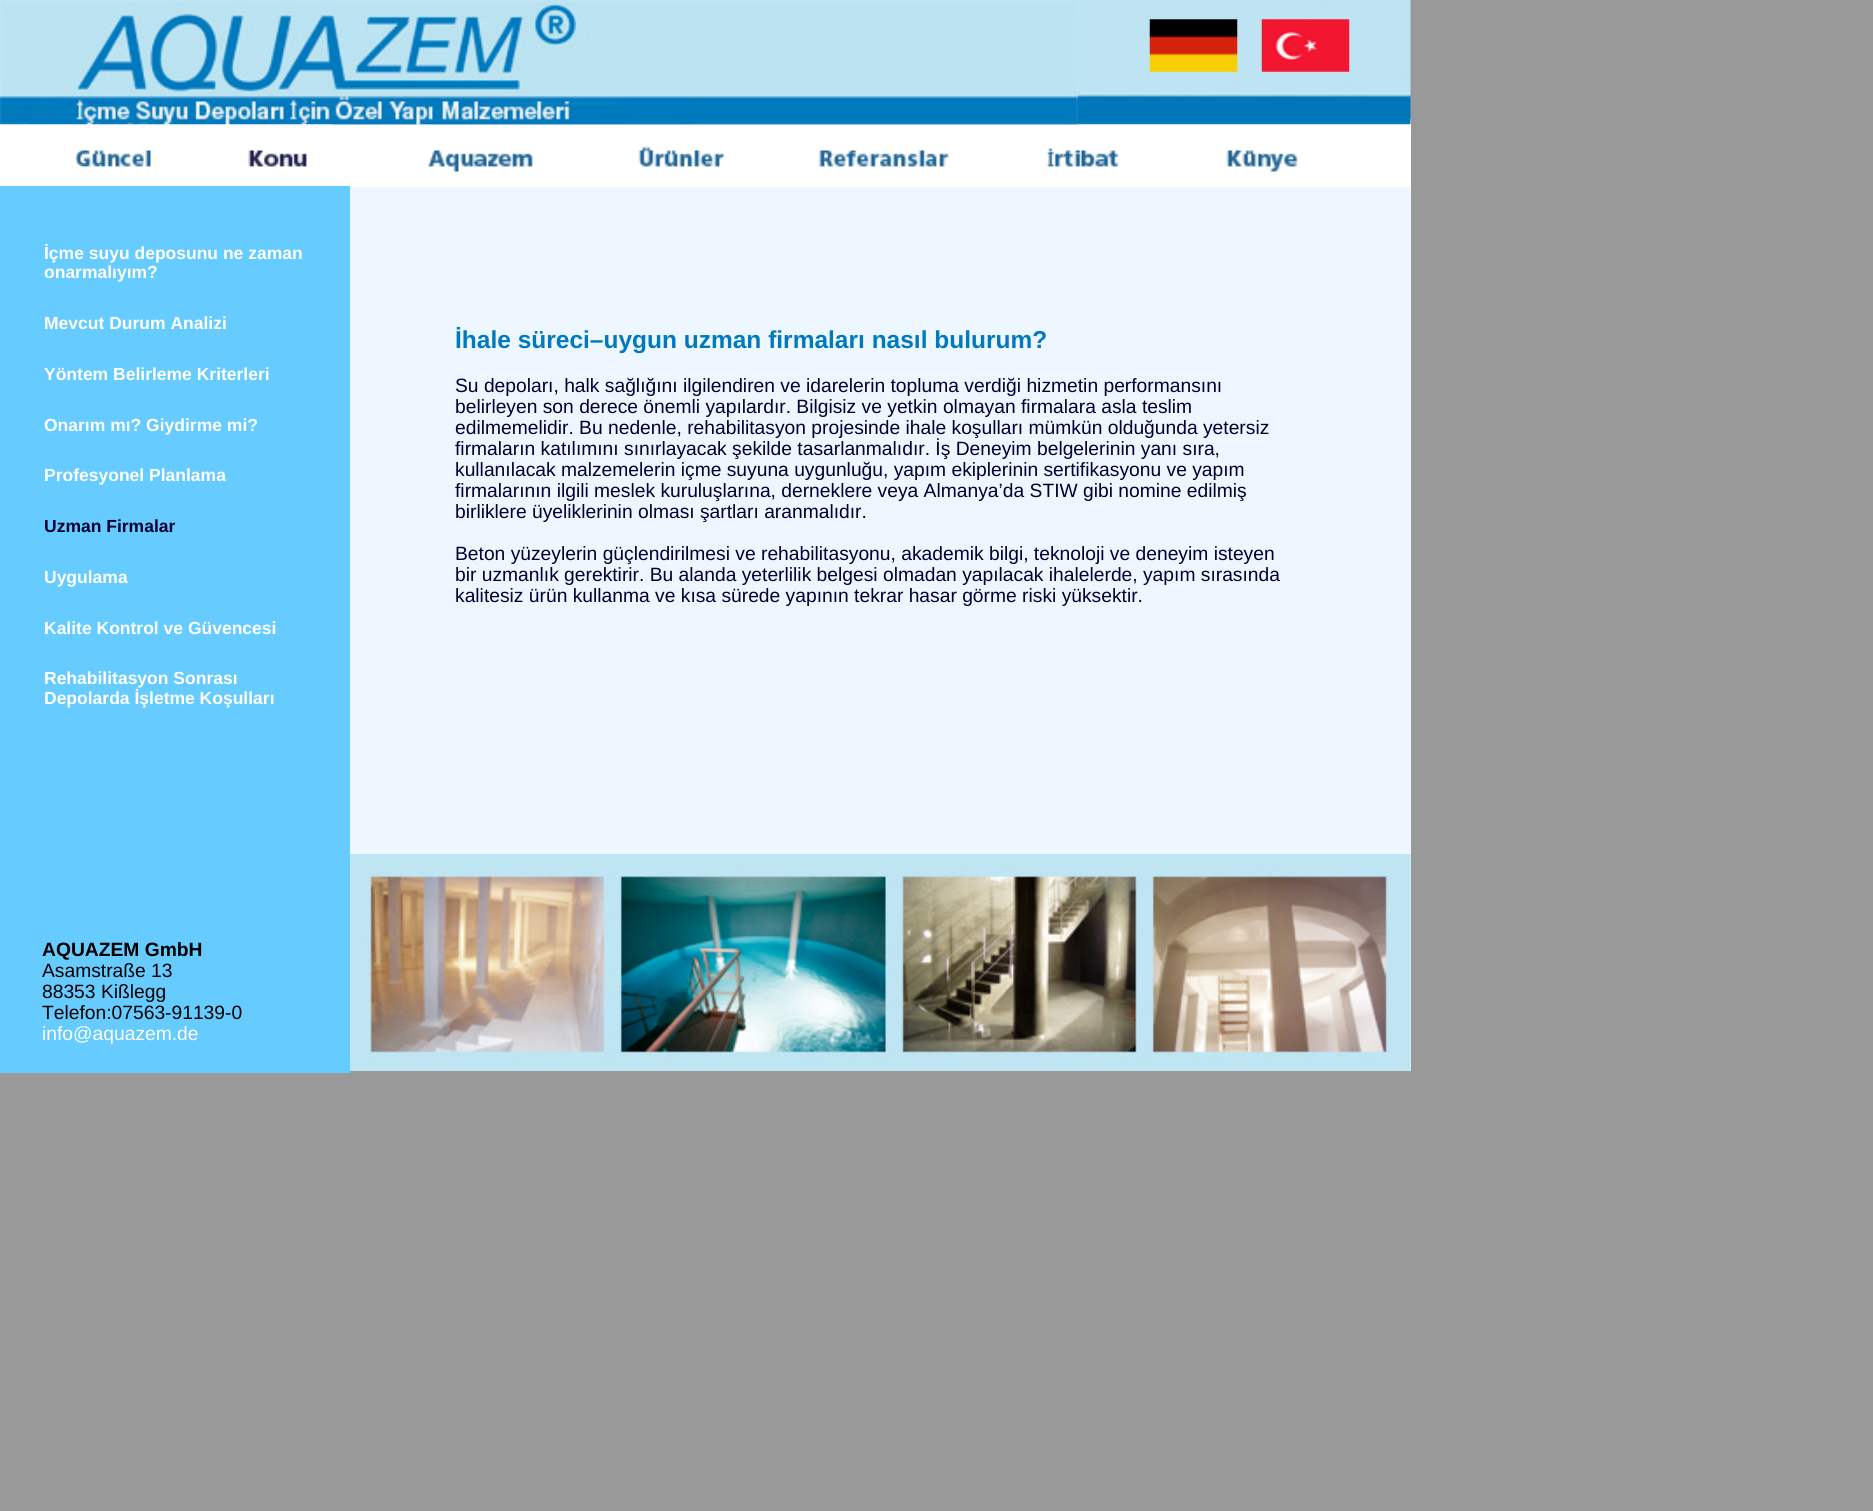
#include <cairo.h>
#include <math.h>
#include <stddef.h>

static cairo_t *c;
static void C(unsigned color){cairo_set_source_rgb(c, (color >> 16) / 255.0, (color >> 8 & 255) / 255.0, (color & 255) / 255.0);}
static void F(const char *family, double size, int italic, int bold){cairo_select_font_face(c, family, italic ? CAIRO_FONT_SLANT_ITALIC : CAIRO_FONT_SLANT_NORMAL,bold ? CAIRO_FONT_WEIGHT_BOLD : CAIRO_FONT_WEIGHT_NORMAL);cairo_set_font_size(c, size);}
static void T(double x, double y, const char *s){cairo_move_to(c, x, y);cairo_show_text(c, s);}
static void R(double x, double y, double w, double h){cairo_rectangle(c, x, y, w, h);cairo_fill(c);}
static void I(const char *path, double x, double y, double w, double h){cairo_surface_t *image = cairo_image_surface_create_from_png(path);cairo_save(c);cairo_set_source_surface(c, image, x, y);cairo_rectangle(c, x, y, w, h);cairo_fill(c);cairo_restore(c);cairo_surface_destroy(image);}
int main(void) {
cairo_surface_t *surface = cairo_image_surface_create(CAIRO_FORMAT_RGB24, 1873, 1511);
c = cairo_create(surface);
cairo_font_options_t *options = cairo_font_options_create();
cairo_font_options_set_hint_metrics(options, CAIRO_HINT_METRICS_OFF);
cairo_font_options_set_hint_style(options, CAIRO_HINT_STYLE_NONE);
cairo_set_font_options(c, options);
cairo_set_miter_limit(c, 4);
C(0x999999);
cairo_paint(c);
C(0xffffff);
R(0,119,1411,68);
I("1.png",332,0,1079,125);
I("2.png",75,150,76,17);
I("3.png",248,150,59,17);
I("4.png",428,150,105,22);
I("5.png",638,146,87,21);
I("6.png",818,150,131,17);
I("7.png",1046,148,73,19);
I("8.png",1226,150,72,22);
C(0x66ccff);
R(0,186,350,887);
C(0xeef7ff);
R(350,187,1061,884);
I("9.png",0,0,1078,125);
I("10.png",1149,19,89,53);
I("11.png",1261,19,89,53);
F("Liberation Sans",17.5,0,1);
C(0xffffff);
T(44,259,"İçme suyu deposunu ne zaman");
T(44,278,"onarmalıyım?");
T(44,329,"Mevcut Durum Analizi");
T(44,380,"Yöntem Belirleme Kriterleri");
T(44,431,"Onarım mı? Giydirme mi?");
T(44,481,"Profesyonel Planlama");
C(0x000033);
T(44,532,"Uzman Firmalar");
C(0xffffff);
T(44,583,"Uygulama");
T(44,634,"Kalite Kontrol ve Güvencesi");
T(44,684,"Rehabilitasyon Sonrası");
T(44,704,"Depolarda İşletme Koşulları");
F("Liberation Sans",24.5,0,1);
C(0x007abf);
T(455,348,"İhale süreci–uygun uzman firmaları nasıl bulurum?");
F("Liberation Sans",19.25,0,0);
C(0x000033);
T(455,392,"Su depoları, halk sağlığını ilgilendiren ve idarelerin topluma verdiği hizmetin performansını");
T(455,413,"belirleyen son derece önemli yapılardır. Bilgisiz ve yetkin olmayan firmalara asla teslim");
T(455,434,"edilmemelidir. Bu nedenle, rehabilitasyon projesinde ihale koşulları mümkün olduğunda yetersiz");
T(455,455,"firmaların katılımını sınırlayacak şekilde tasarlanmalıdır. İş Deneyim belgelerinin yanı sıra,");
T(455,476,"kullanılacak malzemelerin içme suyuna uygunluğu, yapım ekiplerinin sertifikasyonu ve yapım");
T(455,497,"firmalarının ilgili meslek kuruluşlarına, derneklere veya Almanya’da STIW gibi nomine edilmiş");
T(455,518,"birliklere üyeliklerinin olması şartları aranmalıdır.");
T(455,560,"Beton yüzeylerin güçlendirilmesi ve rehabilitasyonu, akademik bilgi, teknoloji ve deneyim isteyen");
T(455,581,"bir uzmanlık gerektirir. Bu alanda yeterlilik belgesi olmadan yapılacak ihalelerde, yapım sırasında");
T(455,602,"kalitesiz ürün kullanma ve kısa sürede yapının tekrar hasar görme riski yüksektir.");
F("Liberation Sans",19.25,0,1);
C(0x000000);
T(42,956,"AQUAZEM GmbH");
F("Liberation Sans",19.25,0,0);
T(42,977,"Asamstraße 13");
T(42,998,"88353 Kißlegg");
T(42,1019,"Telefon:07563-91139-0");
C(0xffffff);
T(42,1040,"info@aquazem.de");
I("12.png",350,854,1061,217);
cairo_surface_write_to_png(surface, "o.png");
cairo_font_options_destroy(options);
cairo_destroy(c);
cairo_surface_destroy(surface);
return 0;
}
